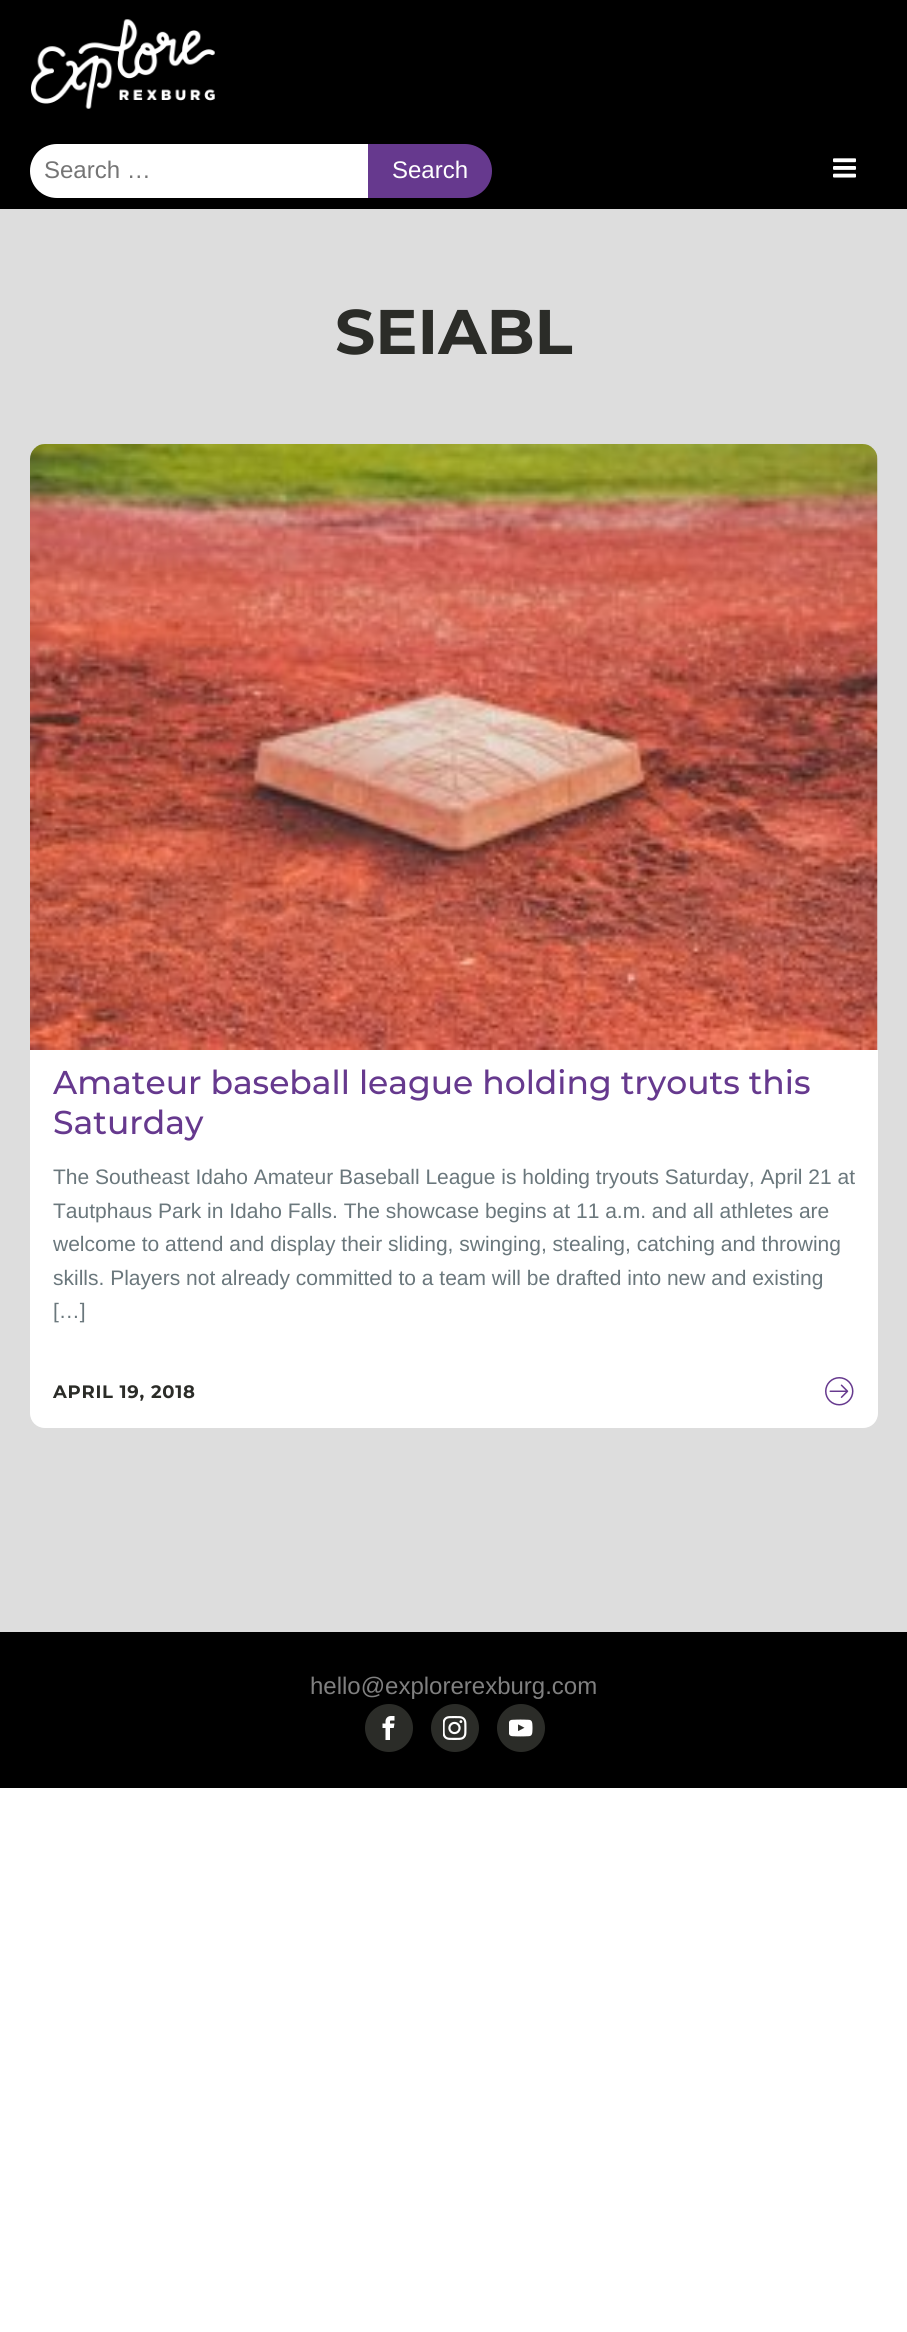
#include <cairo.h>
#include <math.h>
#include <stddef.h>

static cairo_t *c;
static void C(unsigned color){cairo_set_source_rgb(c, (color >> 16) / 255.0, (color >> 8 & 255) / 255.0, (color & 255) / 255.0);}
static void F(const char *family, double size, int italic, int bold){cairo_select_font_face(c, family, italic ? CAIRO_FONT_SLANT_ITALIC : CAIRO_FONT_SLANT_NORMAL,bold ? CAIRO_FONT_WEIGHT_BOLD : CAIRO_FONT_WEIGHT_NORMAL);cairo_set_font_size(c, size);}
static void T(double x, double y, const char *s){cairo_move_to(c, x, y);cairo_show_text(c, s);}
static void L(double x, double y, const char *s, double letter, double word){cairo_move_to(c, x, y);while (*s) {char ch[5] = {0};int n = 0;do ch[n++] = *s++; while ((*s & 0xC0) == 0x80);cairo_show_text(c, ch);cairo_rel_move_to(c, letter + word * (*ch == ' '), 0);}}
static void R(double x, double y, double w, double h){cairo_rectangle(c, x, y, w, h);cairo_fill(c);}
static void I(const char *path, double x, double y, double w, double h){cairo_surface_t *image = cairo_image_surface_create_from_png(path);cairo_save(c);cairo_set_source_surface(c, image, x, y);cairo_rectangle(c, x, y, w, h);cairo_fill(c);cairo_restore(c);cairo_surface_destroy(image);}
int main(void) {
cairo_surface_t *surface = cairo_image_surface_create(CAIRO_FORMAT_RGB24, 907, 2332);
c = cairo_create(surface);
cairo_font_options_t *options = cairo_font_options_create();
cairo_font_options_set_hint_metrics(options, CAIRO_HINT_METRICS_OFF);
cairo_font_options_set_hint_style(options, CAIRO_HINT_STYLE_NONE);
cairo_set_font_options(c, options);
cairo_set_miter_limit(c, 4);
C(0xffffff);
cairo_paint(c);
C(0x000000);
R(0,0,907,209);
I("1.png",31,19,184,90);
C(0xffffff);
cairo_new_path(c);
cairo_move_to(c,57,145);
cairo_line_to(c,367,145);
cairo_line_to(c,367,197);
cairo_line_to(c,57,197);
cairo_curve_to(c,42.5,197,31,185.5,31,171);
cairo_curve_to(c,31,156.5,42.5,145,57,145);
cairo_close_path(c);
cairo_fill_preserve(c);
cairo_stroke(c);
F("Liberation Sans",24,0,0);
C(0x757575);
T(44,178,"Search …");
C(0x66398e);
cairo_new_path(c);
cairo_move_to(c,368,144);
cairo_line_to(c,465,144);
cairo_curve_to(c,480,144,492,156,492,171);
cairo_curve_to(c,492,186,480,198,465,198);
cairo_line_to(c,368,198);
cairo_close_path(c);
cairo_fill(c);
C(0xffffff);
T(392,178,"Search");
I("2.png",833,158,23,20);
C(0xdddddd);
R(0,209,907,1423);
F("Montserrat",63,0,1);
C(0x2b2c28);
T(335,354,"SEIABL");
I("3.png",30,444,848,606);
C(0xffffff);
cairo_new_path(c);
cairo_move_to(c,30,1050);
cairo_line_to(c,878,1050);
cairo_line_to(c,878,1413);
cairo_curve_to(c,878,1421.5,871.5,1428,863,1428);
cairo_line_to(c,45,1428);
cairo_curve_to(c,36.5,1428,30,1421.5,30,1413);
cairo_close_path(c);
cairo_fill(c);
F("Montserrat Medium",33,0,0);
C(0x66398e);
T(53,1094,"Amateur baseball league holding tryouts this");
T(53,1134,"Saturday");
F("Liberation Sans",21,0,0);
C(0x6a777c);
T(53,1184,"The Southeast Idaho Amateur Baseball League is holding tryouts Saturday, April 21 at");
T(53,1218,"Tautphaus Park in Idaho Falls. The showcase begins at 11 a.m. and all athletes are");
T(53,1251,"welcome to attend and display their sliding, swinging, stealing, catching and throwing");
T(53,1285,"skills. Players not already committed to a team will be drafted into new and existing");
T(53,1318,"[…]");
F("Montserrat",18,0,1);
C(0x2b2c28);
L(53,1398,"APRIL 19, 2018",.75,0);
I("4.png",825,1377,29,29);
C(0x000000);
R(0,1632,907,156);
F("Liberation Sans",24,0,0);
C(0x808080);
T(310,1694,"hello@explorerexburg.com");
C(0x2b2c28);
cairo_new_path(c);
cairo_arc(c,389,1728,24,0,2 * M_PI);
cairo_fill(c);
I("5.png",382,1716,13,24);
cairo_arc(c,455,1728,24,0,2 * M_PI);
cairo_fill(c);
I("6.png",443,1716,24,24);
cairo_arc(c,521,1728,24,0,2 * M_PI);
cairo_fill(c);
I("7.png",509,1719,24,18);
cairo_surface_write_to_png(surface, "o.png");
cairo_font_options_destroy(options);
cairo_destroy(c);
cairo_surface_destroy(surface);
return 0;
}
